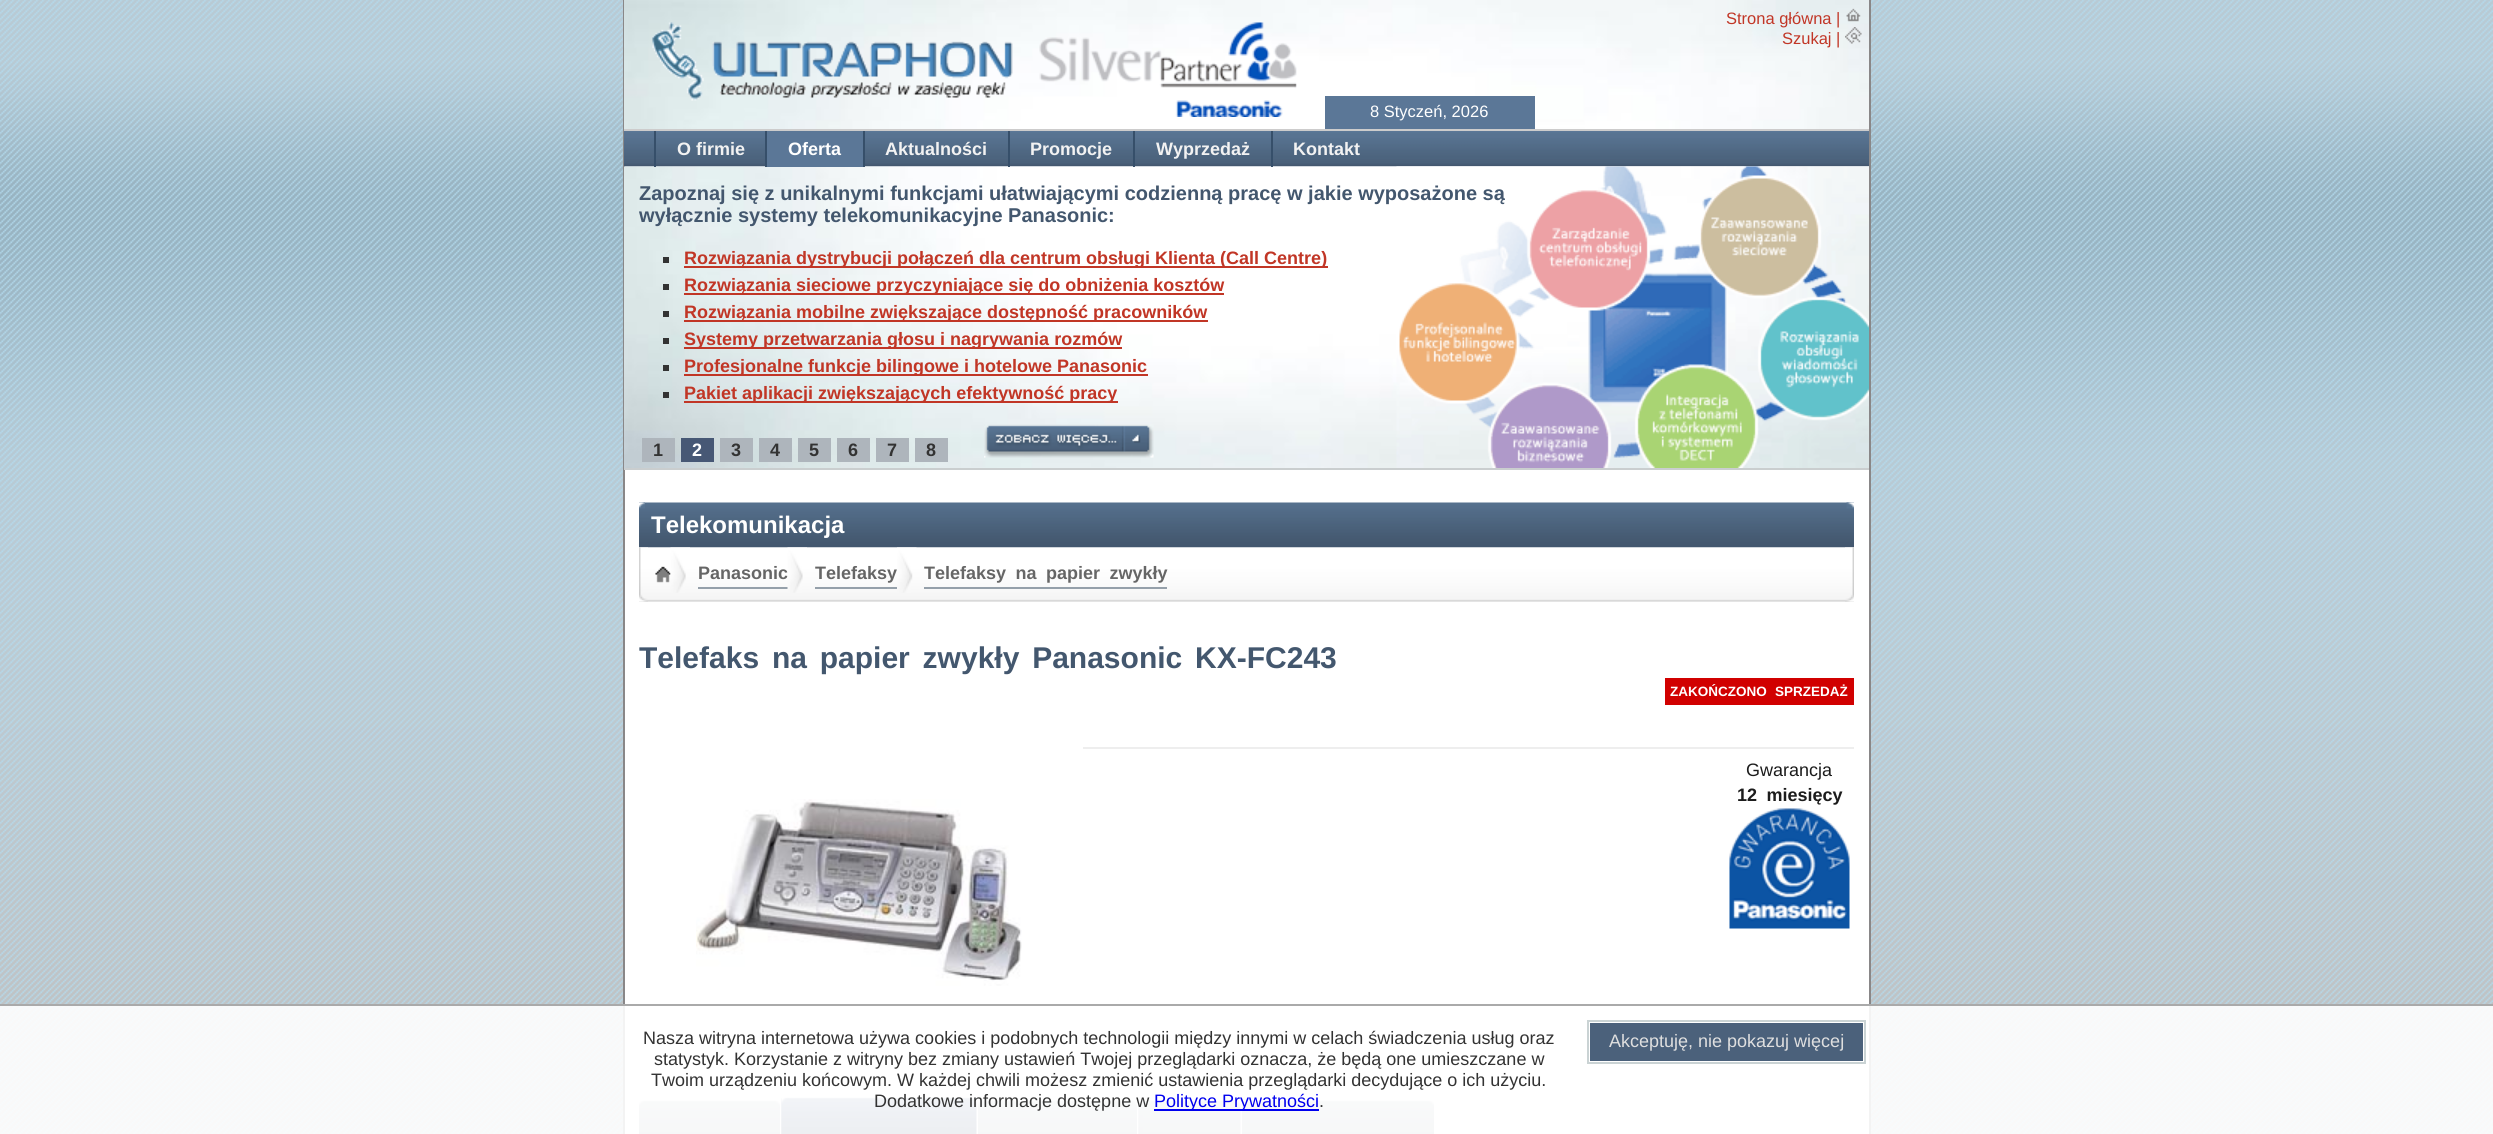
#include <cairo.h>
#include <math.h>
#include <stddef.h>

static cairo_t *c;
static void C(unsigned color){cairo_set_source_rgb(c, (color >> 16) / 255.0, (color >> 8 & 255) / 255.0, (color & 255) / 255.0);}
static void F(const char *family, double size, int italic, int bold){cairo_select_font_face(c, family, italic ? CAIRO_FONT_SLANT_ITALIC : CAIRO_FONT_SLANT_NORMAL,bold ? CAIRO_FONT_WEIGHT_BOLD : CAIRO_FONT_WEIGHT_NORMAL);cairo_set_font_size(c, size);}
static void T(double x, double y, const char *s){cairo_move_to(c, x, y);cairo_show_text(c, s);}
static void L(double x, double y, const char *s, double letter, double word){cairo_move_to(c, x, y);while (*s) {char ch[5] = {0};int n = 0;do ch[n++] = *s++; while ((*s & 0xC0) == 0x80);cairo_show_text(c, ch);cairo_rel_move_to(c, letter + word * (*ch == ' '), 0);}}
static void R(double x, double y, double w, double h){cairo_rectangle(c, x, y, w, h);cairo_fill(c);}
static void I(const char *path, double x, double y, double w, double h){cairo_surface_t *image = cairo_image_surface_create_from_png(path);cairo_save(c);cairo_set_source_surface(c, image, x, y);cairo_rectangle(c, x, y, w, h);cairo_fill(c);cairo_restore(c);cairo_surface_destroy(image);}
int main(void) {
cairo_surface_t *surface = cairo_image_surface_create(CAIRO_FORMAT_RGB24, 2493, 1134);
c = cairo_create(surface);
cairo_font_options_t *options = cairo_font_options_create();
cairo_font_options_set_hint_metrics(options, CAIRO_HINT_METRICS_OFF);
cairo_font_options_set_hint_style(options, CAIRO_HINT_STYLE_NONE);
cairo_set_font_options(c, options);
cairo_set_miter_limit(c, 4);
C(0xc0c0c0);
cairo_paint(c);
I("1.png",0,0,2493,1011);
I("2.png",0,0,2493,1134);
C(0xffffff);
R(625,166,1244,968);
C(0x898788);
R(1869,0,2,1134);
R(623,0,2,1134);
I("3.png",624,0,1245,129);
I("4.png",652,22,361,79);
I("5.png",1039,22,258,95);
C(0x5b7797);
R(1325,96,210,33);
F("Liberation Sans",16.5,0,0);
C(0xffffff);
T(1370,117,"8 Styczeń, 2026");
C(0xc13626);
T(1726,24,"Strona główna |");
I("6.png",1846,8,15,14);
T(1782,44,"Szukaj |");
I("7.png",1845,27,17,17);
I("8.png",624,131,1245,36);
C(0xcdcccc);
R(624,129,1245,2);
I("9.png",624,166,1245,302);
C(0x364f6a);
R(654,131,2,36);
F("Liberation Sans",18,0,1);
C(0xf2f2f2);
T(677,155,"O firmie");
C(0x364f6a);
R(765,131,2,36);
C(0x5b7797);
R(767,132,96,35);
C(0xffffff);
T(788,155,"Oferta");
C(0x364f6a);
R(863,131,2,36);
C(0xf2f2f2);
T(885,155,"Aktualności");
C(0x364f6a);
R(1008,131,2,36);
C(0xf2f2f2);
T(1030,155,"Promocje");
C(0x364f6a);
R(1133,131,2,36);
C(0xf2f2f2);
T(1156,155,"Wyprzedaż");
C(0x364f6a);
R(1271,131,2,36);
C(0xf2f2f2);
T(1293,155,"Kontakt");
C(0xcacecf);
R(624,468,1245,2);
I("11.png",1396,166,473,302);
F("Liberation Sans",20,0,1);
C(0x43576e);
T(639,200,"Zapoznaj się z unikalnymi funkcjami ułatwiającymi codzienną pracę w jakie wyposażone są");
T(639,222,"wyłącznie systemy telekomunikacyjne Panasonic:");
C(0x333333);
R(663,257,6,6);
C(0xc13626);
R(684,266,644,2);
F("Liberation Sans",18,0,1);
T(684,264,"Rozwiązania dystrybucji połączeń dla centrum obsługi Klienta (Call Centre)");
C(0x333333);
R(663,284,6,6);
C(0xc13626);
R(684,293,540,2);
T(684,291,"Rozwiązania sieciowe przyczyniające się do obniżenia kosztów");
C(0x333333);
R(663,311,6,6);
C(0xc13626);
R(684,320,524,2);
T(684,318,"Rozwiązania mobilne zwiększające dostępność pracowników");
C(0x333333);
R(663,338,6,6);
C(0xc13626);
R(684,347,438,2);
T(684,345,"Systemy przetwarzania głosu i nagrywania rozmów");
C(0x333333);
R(663,365,6,6);
C(0xc13626);
R(684,374,464,2);
T(684,372,"Profesjonalne funkcje bilingowe i hotelowe Panasonic");
C(0x333333);
R(663,392,6,6);
C(0xc13626);
R(684,401,434,2);
T(684,399,"Pakiet aplikacji zwiększających efektywność pracy");
I("10.png",984,424,170,34);
C(0xaeb5bc);
R(642,438,33,24);
C(0x333333);
T(653,456,"1");
C(0x475875);
R(681,438,33,24);
C(0xffffff);
T(692,456,"2");
C(0xaeb5bc);
R(720,438,33,24);
C(0x333333);
T(731,456,"3");
C(0xaeb5bc);
R(759,438,33,24);
C(0x333333);
T(770,456,"4");
C(0xaeb5bc);
R(798,438,33,24);
C(0x333333);
T(809,456,"5");
C(0xaeb5bc);
R(837,438,33,24);
C(0x333333);
T(848,456,"6");
C(0xaeb5bc);
R(876,438,33,24);
C(0x333333);
T(887,456,"7");
C(0xaeb5bc);
R(915,438,33,24);
C(0x333333);
T(926,456,"8");
I("12.png",639,502,1215,46);
I("13.png",639,502,6,7);
I("14.png",1846,502,8,7);
F("Liberation Sans",24,0,1);
C(0xffffff);
T(651,533,"Telekomunikacja");
C(0xf5f5f5);
R(639,601,1215,1);
I("15.png",639,547,1215,55);
I("16.png",639,547,9,55);
I("17.png",655,566,16,17);
I("18.png",670,547,20,46);
C(0x95a0aa);
R(698,587,90,2);
F("Liberation Sans",18,0,1);
C(0x666666);
T(698,579,"Panasonic");
I("19.png",787,547,20,46);
C(0x95a0aa);
R(815,587,82,2);
C(0x666666);
T(815,579,"Telefaksy");
I("20.png",897,547,20,46);
C(0x95a0aa);
R(924,587,243,2);
C(0x666666);
L(924,579,"Telefaksy na papier zwykły",0,4.5);
I("21.png",1845,547,9,55);
F("Liberation Sans",30,0,1);
C(0x43576e);
L(639,668,"Telefaks na papier zwykły Panasonic KX-FC243",0,4.5);
C(0xd10000);
R(1665,678,189,27);
F("Liberation Sans",13.5,0,1);
C(0xffffff);
L(1670,696,"ZAKOŃCZONO SPRZEDAŻ",0,4.5);
C(0xeeeeee);
R(1083,747,771,2);
F("Liberation Sans",18,0,0);
C(0x1c1c1c);
T(1746,776,"Gwarancja");
F("Liberation Sans",18,0,1);
L(1737,801,"12 miesięcy",0,4.5);
I("22.png",1729,808,121,121);
I("23.png",696,799,326,187);
I("24.png",639,1100,141,34);
I("25.png",639,1100,5,6);
I("26.png",781,1097,196,37);
I("27.png",781,1097,8,37);
I("28.png",978,1100,159,34);
I("25.png",978,1100,5,6);
I("29.png",1138,1100,103,34);
I("30.png",1138,1100,5,34);
I("31.png",1242,1100,192,34);
I("32.png",1242,1100,5,6);
cairo_set_source_rgba(c,1,1,1,0.9);
R(0,1006,2493,128);
C(0xaaaaaa);
R(0,1004,2493,2);
F("Liberation Sans",18,0,0);
C(0x333333);
T(643,1044,"Nasza witryna internetowa używa cookies i podobnych technologii między innymi w celach świadczenia usług oraz");
T(654,1065,"statystyk. Korzystanie z witryny bez zmiany ustawień Twojej przeglądarki oznacza, że będą one umieszczane w");
T(651,1086,"Twoim urządzeniu końcowym. W każdej chwili możesz zmienić ustawienia przeglądarki decydujące o ich użyciu.");
T(874,1107,"Dodatkowe informacje dostępne w");
C(0x0000ee);
R(1154,1109,165,2);
T(1154,1107,"Polityce Prywatności");
C(0x333333);
T(1319,1107,".");
cairo_rectangle(c,1588,1021,277,42);
C(0xcad3d4);
cairo_stroke(c);
C(0x4b617b);
R(1590,1023,273,38);
C(0xdfdfdf);
T(1609,1047,"Akceptuję, nie pokazuj więcej");
cairo_surface_write_to_png(surface, "o.png");
cairo_font_options_destroy(options);
cairo_destroy(c);
cairo_surface_destroy(surface);
return 0;
}
